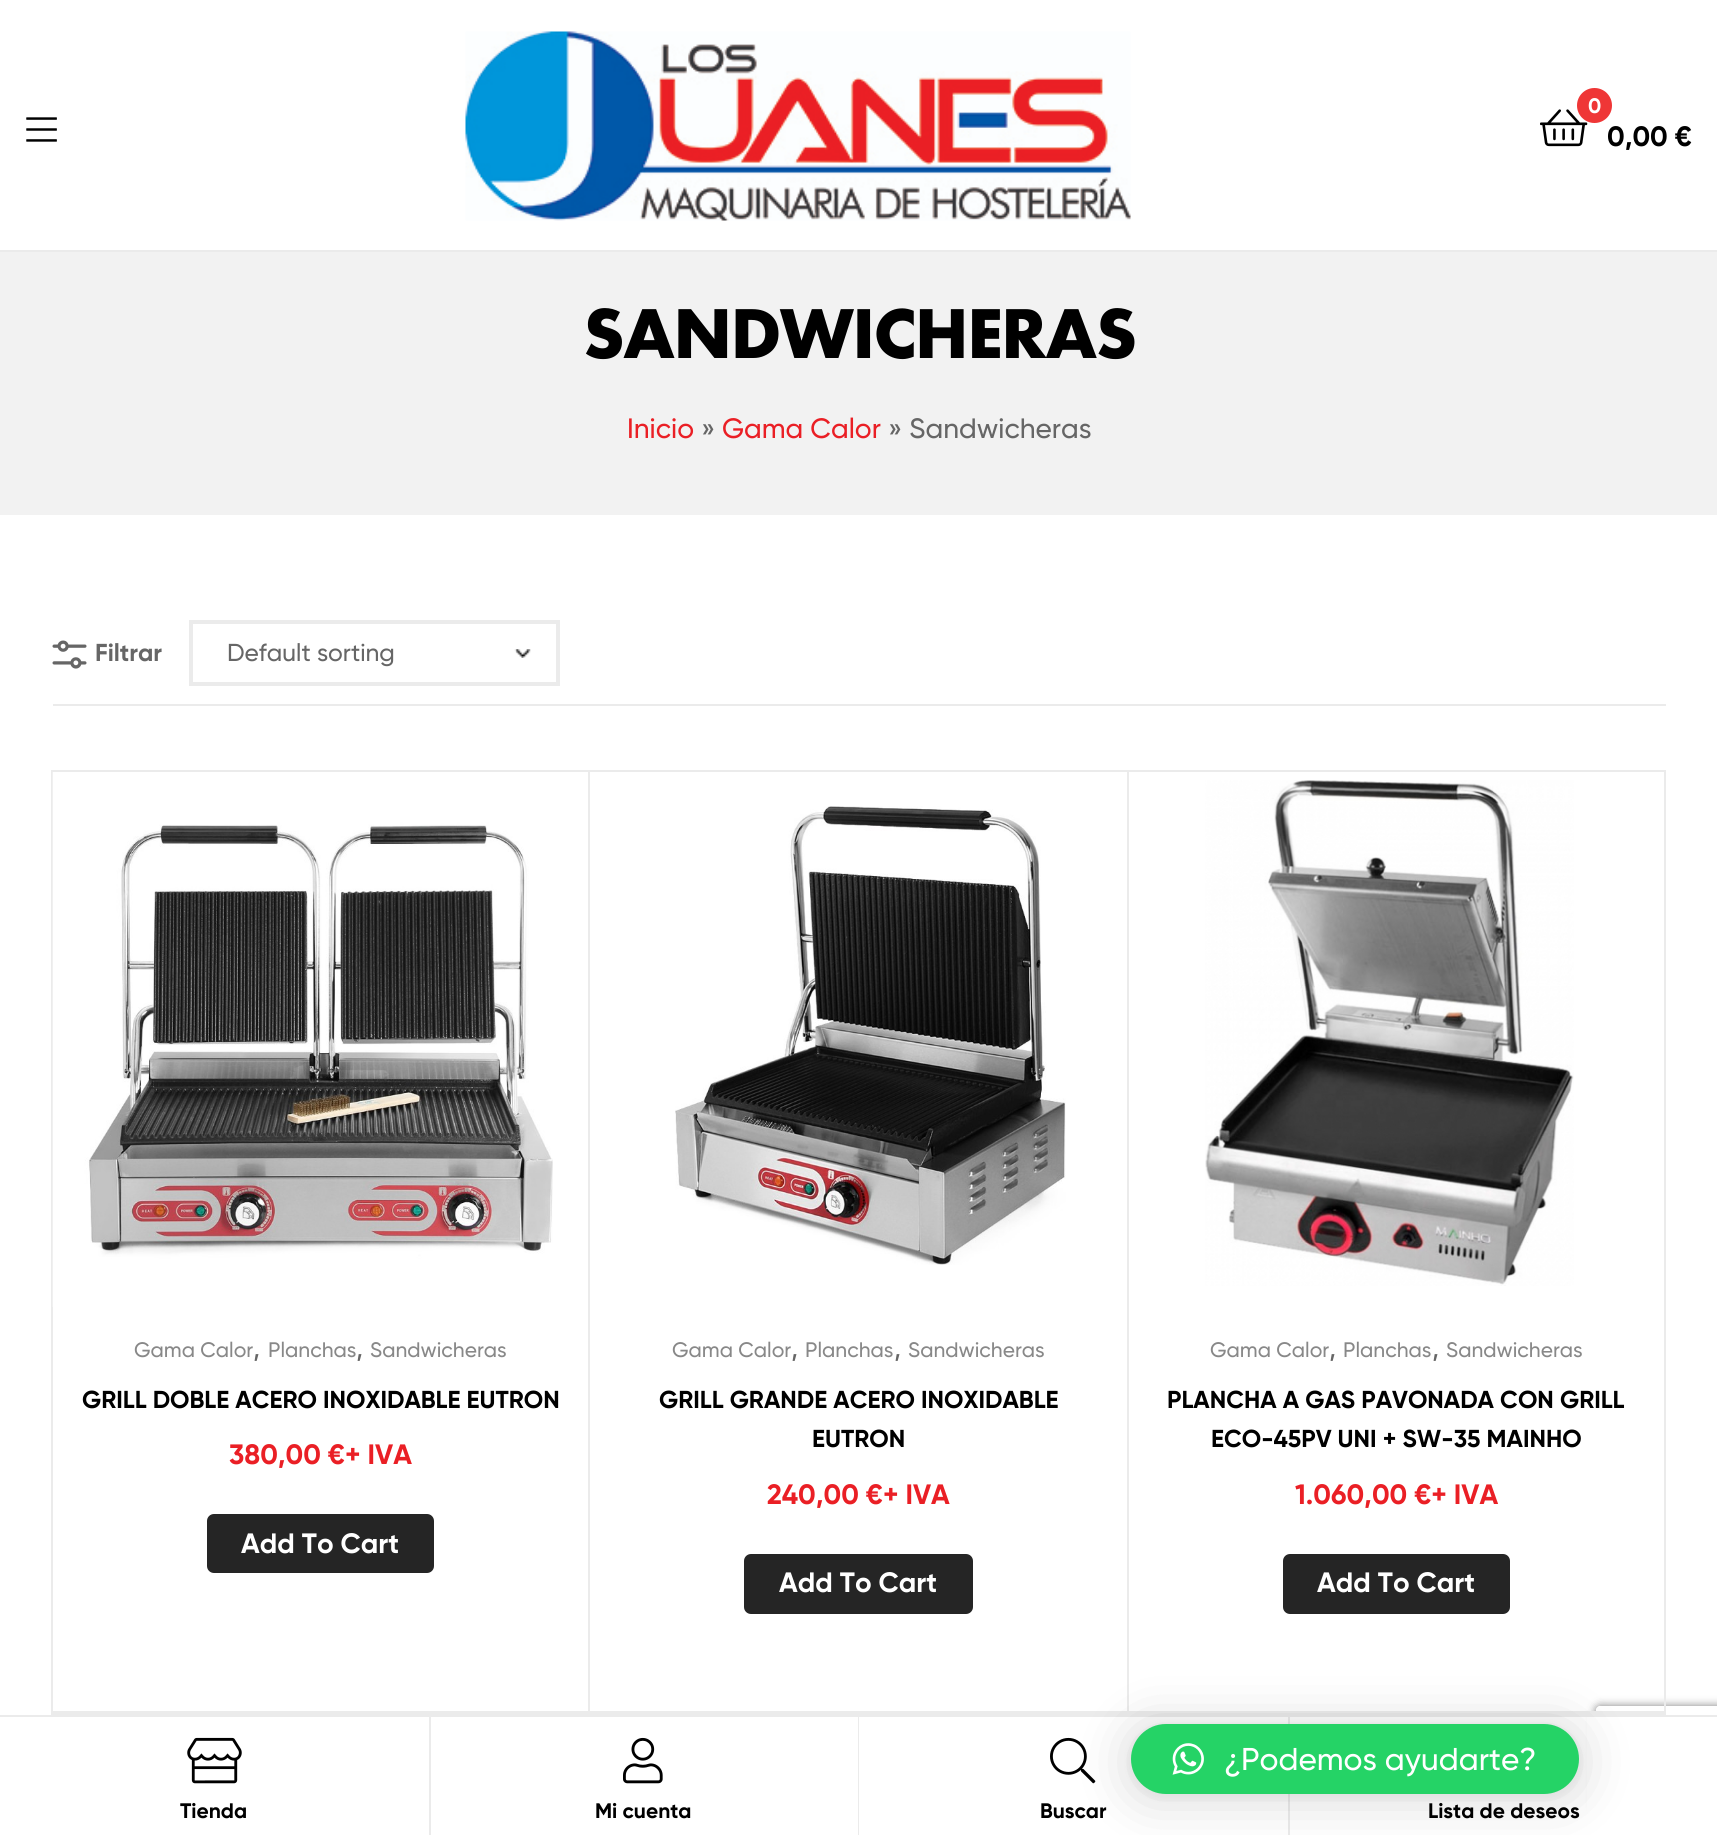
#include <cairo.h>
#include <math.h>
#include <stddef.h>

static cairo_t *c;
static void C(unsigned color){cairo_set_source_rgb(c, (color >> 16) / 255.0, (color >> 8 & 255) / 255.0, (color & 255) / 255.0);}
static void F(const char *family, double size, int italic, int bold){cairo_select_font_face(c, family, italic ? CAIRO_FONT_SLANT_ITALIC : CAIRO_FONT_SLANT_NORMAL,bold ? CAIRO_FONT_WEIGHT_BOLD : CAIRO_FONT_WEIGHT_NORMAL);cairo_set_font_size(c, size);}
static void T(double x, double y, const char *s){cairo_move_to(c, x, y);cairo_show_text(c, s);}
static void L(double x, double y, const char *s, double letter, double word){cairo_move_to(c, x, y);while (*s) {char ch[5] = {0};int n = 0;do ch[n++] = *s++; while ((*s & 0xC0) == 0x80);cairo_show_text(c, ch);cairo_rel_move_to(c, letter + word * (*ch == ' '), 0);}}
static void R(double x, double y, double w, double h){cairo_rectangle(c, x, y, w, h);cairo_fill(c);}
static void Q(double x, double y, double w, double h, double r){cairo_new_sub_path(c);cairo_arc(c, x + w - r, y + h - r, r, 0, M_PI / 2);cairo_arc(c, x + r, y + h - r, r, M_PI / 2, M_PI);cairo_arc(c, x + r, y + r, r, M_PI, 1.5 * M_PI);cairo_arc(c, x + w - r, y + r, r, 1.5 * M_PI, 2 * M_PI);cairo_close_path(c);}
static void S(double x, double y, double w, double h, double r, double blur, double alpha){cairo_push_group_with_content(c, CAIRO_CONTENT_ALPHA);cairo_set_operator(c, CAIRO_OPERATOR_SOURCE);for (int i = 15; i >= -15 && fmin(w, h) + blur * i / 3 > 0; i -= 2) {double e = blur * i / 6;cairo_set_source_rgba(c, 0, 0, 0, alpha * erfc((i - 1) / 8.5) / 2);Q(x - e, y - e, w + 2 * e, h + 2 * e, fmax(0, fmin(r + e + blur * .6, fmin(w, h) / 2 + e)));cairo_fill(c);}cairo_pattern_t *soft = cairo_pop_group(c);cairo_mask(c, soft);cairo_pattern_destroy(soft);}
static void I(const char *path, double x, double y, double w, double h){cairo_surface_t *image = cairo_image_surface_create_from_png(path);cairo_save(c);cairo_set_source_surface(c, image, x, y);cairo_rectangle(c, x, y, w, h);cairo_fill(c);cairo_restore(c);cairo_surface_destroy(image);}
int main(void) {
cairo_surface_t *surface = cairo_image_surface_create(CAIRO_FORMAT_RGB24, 1717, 1835);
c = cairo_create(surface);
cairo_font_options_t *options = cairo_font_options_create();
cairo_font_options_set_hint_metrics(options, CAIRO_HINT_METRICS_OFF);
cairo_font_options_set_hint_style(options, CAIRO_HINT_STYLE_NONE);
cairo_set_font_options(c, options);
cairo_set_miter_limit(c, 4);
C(0xffffff);
cairo_paint(c);
C(0xebebeb);
R(0,250,1717,2);
I("1.png",26,117,31,25);
I("2.png",465,31,666,190);
I("3.png",1540,109,48,38);
C(0xef3636);
cairo_arc(c,1594.5,105.5,17.5,0,2 * M_PI);
cairo_fill(c);
F("Gilroy",21,0,1);
C(0xffffff);
T(1588,113,"0");
F("Gilroy",28,0,1);
C(0x000000);
T(1607,146,"0,00 €");
C(0xf2f2f2);
R(0,252,1717,263);
F("Futura PT",73.25,0,1);
C(0x000000);
L(583,358,"SANDWICHERAS",-1.75,0);
F("Gilroy Medium",28,0,0);
C(0xea1f25);
T(627,438,"Inicio");
C(0x666666);
T(701,438,"»");
C(0xea1f25);
T(722,438,"Gama Calor");
C(0x666666);
T(888,438,"» Sandwicheras");
C(0xebebeb);
R(53,704,1613,2);
I("4.png",52,640,35,29);
F("Gilroy",24.5,0,1);
C(0x666666);
T(95,661,"Filtrar");
I("5.png",514,649,17,9);
cairo_rectangle(c,191,622,367,62);
C(0xebebeb);
cairo_set_line_width(c,4);
cairo_stroke(c);
F("Gilroy Medium",24.5,0,0);
C(0x666666);
T(227,661,"Default sorting");
cairo_rectangle(c,52,771,537,941);
C(0xebebeb);
cairo_set_line_width(c,2);
cairo_stroke(c);
I("6.png",52,772,501,535);
F("Gilroy Medium",21,0,0);
C(0x888888);
T(134,1357,"Gama Calor");
F("Gilroy Medium",28,0,0);
C(0x666666);
T(253,1357,",");
F("Gilroy Medium",21,0,0);
C(0x888888);
T(268,1357,"Planchas");
F("Gilroy Medium",28,0,0);
C(0x666666);
T(356,1357,",");
F("Gilroy Medium",21,0,0);
C(0x888888);
T(370,1357,"Sandwicheras");
F("Gilroy",24.5,0,1);
C(0x000000);
T(82,1408,"GRILL DOBLE ACERO INOXIDABLE EUTRON");
F("Gilroy",28,0,1);
C(0xea1f25);
T(229,1464,"380,00 €+ IVA");
C(0x252525);
Q(207,1514,227,59,7);
cairo_fill(c);
C(0xffffff);
T(241,1553,"Add To Cart");
cairo_rectangle(c,589,771,539,941);
C(0xebebeb);
cairo_stroke(c);
I("7.png",675,806,391,459);
F("Gilroy Medium",21,0,0);
C(0x888888);
T(672,1357,"Gama Calor");
F("Gilroy Medium",28,0,0);
C(0x666666);
T(791,1357,",");
F("Gilroy Medium",21,0,0);
C(0x888888);
T(805,1357,"Planchas");
F("Gilroy Medium",28,0,0);
C(0x666666);
T(894,1357,",");
F("Gilroy Medium",21,0,0);
C(0x888888);
T(908,1357,"Sandwicheras");
F("Gilroy",24.5,0,1);
C(0x000000);
T(659,1408,"GRILL GRANDE ACERO INOXIDABLE");
T(812,1447,"EUTRON");
F("Gilroy",28,0,1);
C(0xea1f25);
T(767,1504,"240,00 €+ IVA");
C(0x252525);
Q(744,1554,229,60,7);
cairo_fill(c);
C(0xffffff);
T(779,1592,"Add To Cart");
cairo_save(c);
cairo_set_fill_rule(c,CAIRO_FILL_RULE_EVEN_ODD);
cairo_new_path(c);
cairo_move_to(c,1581,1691);
cairo_line_to(c,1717,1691);
cairo_line_to(c,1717,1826);
cairo_line_to(c,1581,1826);
cairo_close_path(c);
cairo_move_to(c,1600,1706);
cairo_line_to(c,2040,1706);
cairo_curve_to(c,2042,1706,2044,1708,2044,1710);
cairo_line_to(c,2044,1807);
cairo_curve_to(c,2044,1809,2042,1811,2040,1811);
cairo_line_to(c,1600,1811);
cairo_curve_to(c,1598,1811,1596,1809,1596,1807);
cairo_line_to(c,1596,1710);
cairo_curve_to(c,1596,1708,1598,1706,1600,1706);
cairo_close_path(c);
cairo_clip(c);
C(0x808080);
S(1596,1706,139,105,4,4.5,1);
cairo_restore(c);
cairo_rectangle(c,1128,771,537,941);
C(0xebebeb);
cairo_stroke(c);
I("8.png",1205,780,369,506);
F("Gilroy Medium",21,0,0);
C(0x888888);
T(1210,1357,"Gama Calor");
F("Gilroy Medium",28,0,0);
C(0x666666);
T(1329,1357,",");
F("Gilroy Medium",21,0,0);
C(0x888888);
T(1343,1357,"Planchas");
F("Gilroy Medium",28,0,0);
C(0x666666);
T(1432,1357,",");
F("Gilroy Medium",21,0,0);
C(0x888888);
T(1446,1357,"Sandwicheras");
F("Gilroy",24.5,0,1);
C(0x000000);
T(1167,1408,"PLANCHA A GAS PAVONADA CON GRILL");
T(1211,1447,"ECO-45PV UNI + SW-35 MAINHO");
F("Gilroy",28,0,1);
C(0xea1f25);
T(1295,1504,"1.060,00 €+ IVA");
C(0x252525);
Q(1283,1554,227,60,7);
cairo_fill(c);
C(0xffffff);
T(1317,1592,"Add To Cart");
cairo_rectangle(c,52,1714,537,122);
C(0xebebeb);
cairo_stroke(c);
cairo_rectangle(c,589,1714,539,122);
cairo_stroke(c);
cairo_rectangle(c,1128,1714,537,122);
cairo_stroke(c);
R(0,1715,1717,2);
C(0xffffff);
R(51,1717,2,118);
C(0xebebeb);
R(429,1717,2,118);
I("9.png",187,1737,55,47);
F("Gilroy",21,0,1);
C(0x000000);
T(180,1818,"Tienda");
C(0xffffff);
R(588,1717,2,118);
C(0xebebeb);
R(858,1717,1,118);
I("10.png",623,1737,40,47);
C(0x000000);
T(595,1818,"Mi cuenta");
C(0xffffff);
R(1127,1717,2,118);
C(0xebebeb);
R(1288,1717,2,118);
I("11.png",1050,1737,46,47);
C(0x000000);
T(1040,1818,"Buscar");
C(0xffffff);
R(1587,1717,130,118);
C(0x000000);
T(1428,1818,"Lista de deseos");
C(0x000000);
S(1131,1727,448,70,35,28,.16);
S(1131,1726,448,70,35,5,.06);
C(0x25d366);
Q(1131,1724,448,70,35);
cairo_fill(c);
I("12.png",1172,1743,32,32);
F("Gilroy Medium",31.5,0,0);
C(0xffffff);
T(1224,1770,"¿Podemos ayudarte?");
cairo_surface_write_to_png(surface, "o.png");
cairo_font_options_destroy(options);
cairo_destroy(c);
cairo_surface_destroy(surface);
return 0;
}
